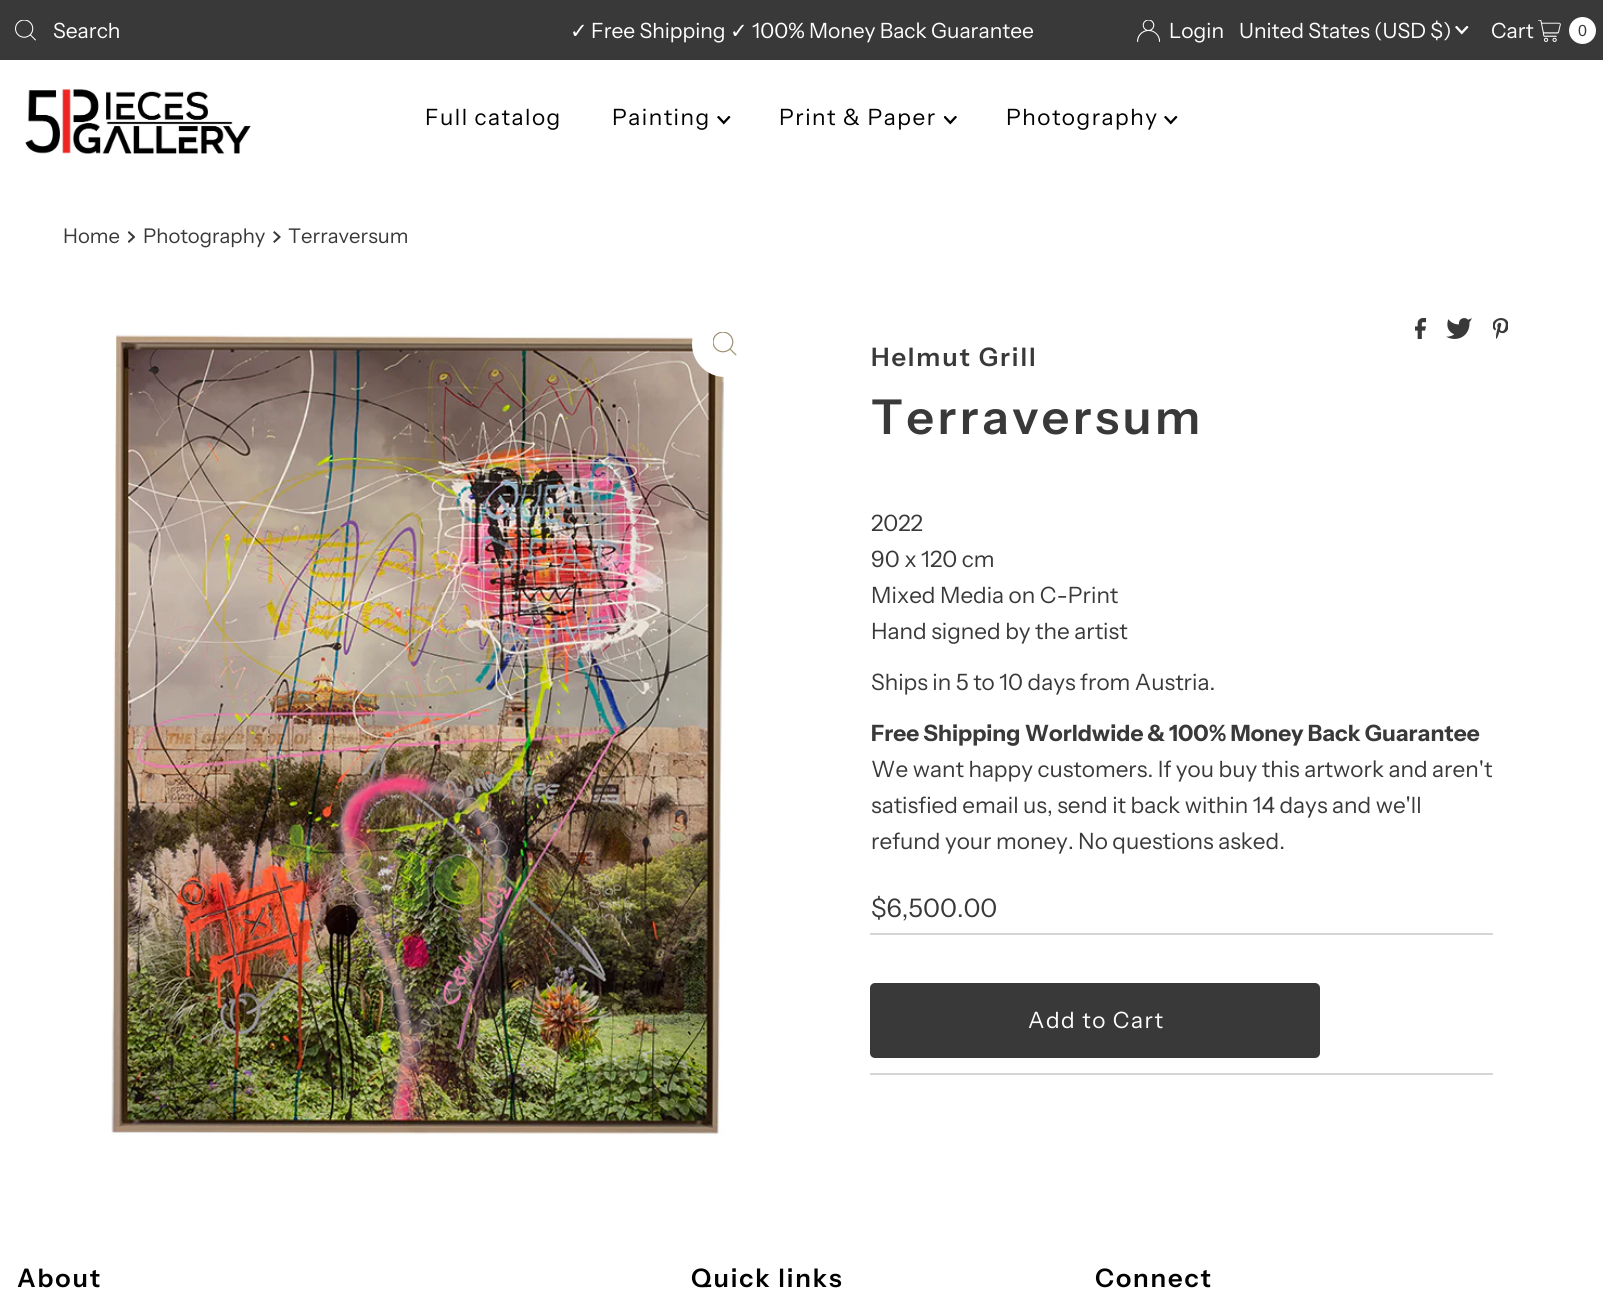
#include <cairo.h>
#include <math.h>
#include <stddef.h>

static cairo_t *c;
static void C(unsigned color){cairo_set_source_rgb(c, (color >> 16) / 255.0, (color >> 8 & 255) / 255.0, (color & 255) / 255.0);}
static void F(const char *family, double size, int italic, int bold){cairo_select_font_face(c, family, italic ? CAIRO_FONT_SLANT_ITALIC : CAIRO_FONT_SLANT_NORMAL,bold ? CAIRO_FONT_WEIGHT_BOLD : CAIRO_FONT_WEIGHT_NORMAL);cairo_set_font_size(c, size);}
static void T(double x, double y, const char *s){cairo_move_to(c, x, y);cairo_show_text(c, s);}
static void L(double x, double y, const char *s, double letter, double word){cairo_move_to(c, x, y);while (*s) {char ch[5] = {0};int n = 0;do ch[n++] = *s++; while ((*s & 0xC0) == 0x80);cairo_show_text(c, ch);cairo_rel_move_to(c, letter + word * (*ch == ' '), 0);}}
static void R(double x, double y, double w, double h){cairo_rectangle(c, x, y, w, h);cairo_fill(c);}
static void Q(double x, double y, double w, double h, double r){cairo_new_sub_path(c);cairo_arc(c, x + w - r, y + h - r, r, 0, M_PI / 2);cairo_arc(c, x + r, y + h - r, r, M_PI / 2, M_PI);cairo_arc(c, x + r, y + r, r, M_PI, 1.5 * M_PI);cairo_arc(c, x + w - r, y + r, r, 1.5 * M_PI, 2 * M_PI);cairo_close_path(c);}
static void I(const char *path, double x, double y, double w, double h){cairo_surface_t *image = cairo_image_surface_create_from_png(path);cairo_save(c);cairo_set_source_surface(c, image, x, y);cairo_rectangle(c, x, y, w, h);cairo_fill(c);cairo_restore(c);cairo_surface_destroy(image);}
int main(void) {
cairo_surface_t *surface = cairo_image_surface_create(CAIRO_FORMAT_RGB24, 1603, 1298);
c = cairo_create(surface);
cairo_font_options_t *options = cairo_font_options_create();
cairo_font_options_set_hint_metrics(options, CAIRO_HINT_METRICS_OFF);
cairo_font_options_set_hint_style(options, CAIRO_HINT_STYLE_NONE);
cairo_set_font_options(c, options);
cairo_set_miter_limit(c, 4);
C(0xffffff);
cairo_paint(c);
C(0x393939);
R(0,0,1603,60);
I("1.png",15,20,21,21);
F("Instrument Sans",21,0,0);
C(0xffffff);
T(53,38,"Search");
F("DejaVu Sans",21,0,0);
T(570,38,"✓");
F("Instrument Sans",21,0,0);
T(591,38,"Free Shipping");
F("DejaVu Sans",21,0,0);
T(730,38,"✓");
F("Instrument Sans",21,0,0);
T(752,38,"100% Money Back Guarantee");
I("2.png",1137,20,23,22);
T(1169,38,"Login");
T(1239,38,"United States (USD $)");
I("3.png",1455,26,14,9);
T(1491,38,"Cart");
I("4.png",1538,20,23,22);
cairo_arc(c,1582.5,30.5,13.5,0,2 * M_PI);
cairo_fill(c);
F("Liberation Sans",16,0,0);
C(0x393939);
T(1578,36,"0");
I("5.png",25,89,226,65);
F("Instrument Sans",22.5,0,0);
C(0x000000);
L(425,125,"Full catalog",1.5,0);
L(612,125,"Painting",1.5,0);
I("6.png",717,116,14,9);
L(779,125,"Print & Paper",1.5,0);
I("7.png",944,116,13,9);
L(1006,125,"Photography",1.5,0);
I("6.png",1164,116,14,9);
F("Instrument Sans",20.25,0,0);
C(0x393939);
T(63,243,"Home");
I("8.png",128,231,7,12);
T(143,243,"Photography");
I("9.png",273,231,8,12);
T(288,243,"Terraversum");
I("11.png",111,333,615,803);
C(0xffffff);
cairo_arc(c,725,344,33,0,2 * M_PI);
cairo_fill(c);
I("10.png",713,332,24,24);
I("12.png",1415,318,12,21);
I("13.png",1446,318,26,21);
I("14.png",1493,318,15,21);
F("Instrument Sans SemiBold",25.5,0,0);
C(0x393939);
L(871,366,"Helmut Grill",1.9,0);
F("Instrument Sans SemiBold",48,0,0);
L(871,434,"Terraversum",3.6,0);
F("Instrument Sans",22.5,0,0);
T(871,531,"2022");
T(871,567,"90 x 120 cm");
T(871,603,"Mixed Media on C-Print");
T(871,639,"Hand signed by the artist");
T(871,690,"Ships in 5 to 10 days from Austria.");
F("Instrument Sans",22.5,0,1);
T(871,741,"Free Shipping Worldwide & 100% Money Back Guarantee");
F("Instrument Sans",22.5,0,0);
T(871,777,"We want happy customers. If you buy this artwork and aren't");
T(871,813,"satisfied email us, send it back within 14 days and we'll");
T(871,849,"refund your money. No questions asked.");
C(0xd5d5d5);
R(870,933,623,2);
F("Instrument Sans",25.5,0,0);
C(0x393939);
T(871,917,"$6,500.00");
C(0xd5d5d5);
R(870,1073,623,2);
C(0x393939);
Q(870,983,450,75,5);
cairo_fill(c);
F("Instrument Sans",22.5,0,0);
C(0xffffff);
L(1028,1028,"Add to Cart",1.5,0);
F("Instrument Sans SemiBold",25.5,0,0);
C(0x000000);
L(17,1287,"About",1.9,0);
L(691,1287,"Quick links",1.9,0);
L(1095,1287,"Connect",1.9,0);
cairo_surface_write_to_png(surface, "o.png");
cairo_font_options_destroy(options);
cairo_destroy(c);
cairo_surface_destroy(surface);
return 0;
}
